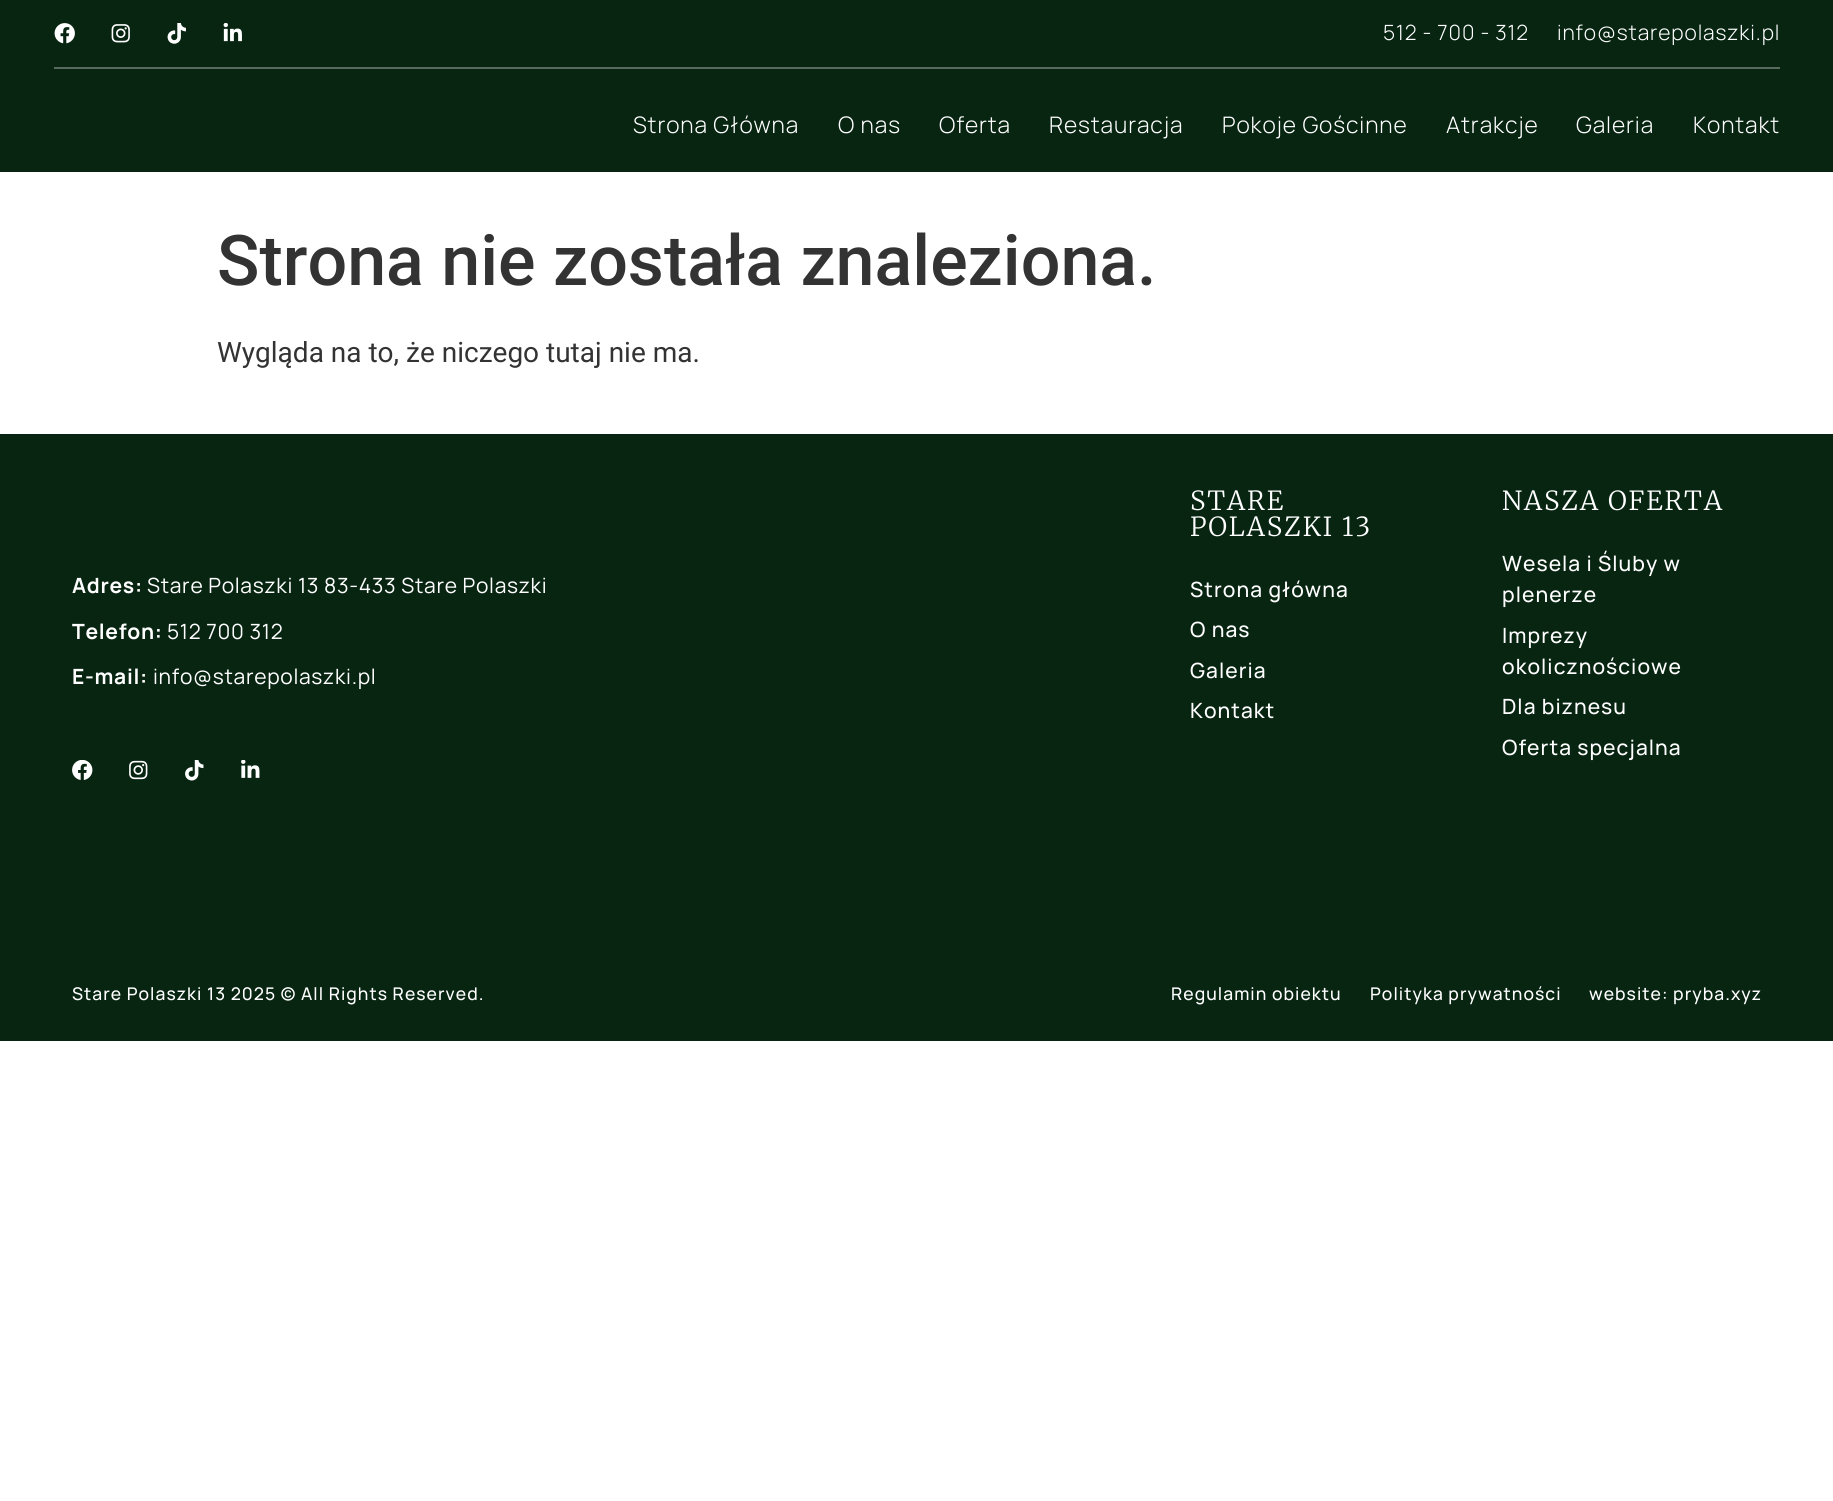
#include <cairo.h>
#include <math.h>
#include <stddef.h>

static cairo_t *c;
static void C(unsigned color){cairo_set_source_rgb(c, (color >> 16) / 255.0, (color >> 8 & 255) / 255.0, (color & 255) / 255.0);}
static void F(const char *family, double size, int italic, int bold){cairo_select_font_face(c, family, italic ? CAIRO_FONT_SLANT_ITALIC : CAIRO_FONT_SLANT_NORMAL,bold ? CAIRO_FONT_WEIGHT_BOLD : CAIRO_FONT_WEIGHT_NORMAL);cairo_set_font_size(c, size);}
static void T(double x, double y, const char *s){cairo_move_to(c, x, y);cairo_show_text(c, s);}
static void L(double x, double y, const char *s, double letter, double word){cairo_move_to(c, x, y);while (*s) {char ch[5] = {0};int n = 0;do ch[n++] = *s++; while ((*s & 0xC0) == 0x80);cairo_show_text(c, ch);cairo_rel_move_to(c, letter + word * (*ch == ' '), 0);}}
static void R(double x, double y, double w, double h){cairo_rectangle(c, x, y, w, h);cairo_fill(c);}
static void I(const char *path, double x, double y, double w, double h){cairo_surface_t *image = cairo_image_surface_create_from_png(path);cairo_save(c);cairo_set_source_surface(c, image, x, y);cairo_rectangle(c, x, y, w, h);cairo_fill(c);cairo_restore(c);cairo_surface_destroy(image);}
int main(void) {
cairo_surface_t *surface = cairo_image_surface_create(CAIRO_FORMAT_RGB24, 1833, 1501);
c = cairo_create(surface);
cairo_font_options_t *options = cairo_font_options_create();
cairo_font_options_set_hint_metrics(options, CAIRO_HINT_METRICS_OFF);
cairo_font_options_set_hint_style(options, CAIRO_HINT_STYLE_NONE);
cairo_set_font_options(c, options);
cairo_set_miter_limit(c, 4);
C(0xffffff);
cairo_paint(c);
C(0x082512);
R(0,0,1833,172);
I("1.png",54,23,21,21);
I("2.png",111,24,19,19);
I("3.png",167,23,19,21);
I("4.png",223,23,19,19);
F("Manrope Light",21,0,0);
C(0xffffff);
L(1383,40,"512 - 700 - 312",.9,0);
L(1557,40,"info@starepolaszki.pl",.9,0);
C(0x576b5e);
R(54,67,1726,2);
F("Manrope Light",22.75,0,0);
C(0xffffff);
L(633,133,"Strona Główna",.9,0);
L(838,133,"O nas",.9,0);
L(939,133,"Oferta",.9,0);
L(1049,133,"Restauracja",.9,0);
L(1222,133,"Pokoje Gościnne",.9,0);
L(1446,133,"Atrakcje",.9,0);
L(1576,133,"Galeria",.9,0);
L(1693,133,"Kontakt",.9,0);
F("Roboto Medium",70,0,0);
C(0x333333);
T(217,285,"Strona nie została znaleziona.");
F("Roboto",28,0,0);
T(217,362,"Wygląda na to, że niczego tutaj nie ma.");
C(0x082512);
R(0,434,1833,607);
F("Manrope",21,0,1);
C(0xffffff);
L(72,593,"Adres:",.7,0);
F("Manrope",21,0,0);
L(147,593,"Stare Polaszki 13 83-433 Stare Polaszki",.7,0);
F("Manrope",21,0,1);
L(72,639,"Telefon:",.7,0);
F("Manrope",21,0,0);
L(167,639,"512 700 312",.7,0);
F("Manrope",21,0,1);
L(72,684,"E-mail:",.7,0);
F("Manrope",21,0,0);
L(153,684,"info@starepolaszki.pl",.7,0);
I("5.png",72,760,21,20);
I("6.png",129,760,19,20);
I("7.png",185,760,19,21);
I("8.png",241,760,19,18);
F("Merriweather Light",26.25,0,0);
L(1190,510,"STARE",1.75,0);
L(1190,536,"POLASZKI 13",1.75,0);
F("Manrope Medium",21,0,0);
L(1190,597,"Strona główna",1.05,0);
L(1190,637,"O nas",1.05,0);
L(1190,678,"Galeria",1.05,0);
L(1190,718,"Kontakt",1.05,0);
F("Merriweather Light",26.25,0,0);
L(1502,510,"NASZA OFERTA",1.75,0);
F("Manrope Medium",21,0,0);
L(1502,571,"Wesela i Śluby w",1.05,0);
L(1502,602,"plenerze",1.05,0);
L(1502,643,"Imprezy",1.05,0);
L(1502,674,"okolicznościowe",1.05,0);
L(1502,714,"Dla biznesu",1.05,0);
L(1502,755,"Oferta specjalna",1.05,0);
F("Manrope Medium",17.5,0,0);
L(72,1000,"Stare Polaszki 13 2025 © All Rights Reserved.",1.05,0);
L(1171,1000,"Regulamin obiektu",1.05,0);
L(1370,1000,"Polityka prywatności",1.05,0);
L(1589,1000,"website: pryba.xyz",1.05,0);
cairo_surface_write_to_png(surface, "o.png");
cairo_font_options_destroy(options);
cairo_destroy(c);
cairo_surface_destroy(surface);
return 0;
}
